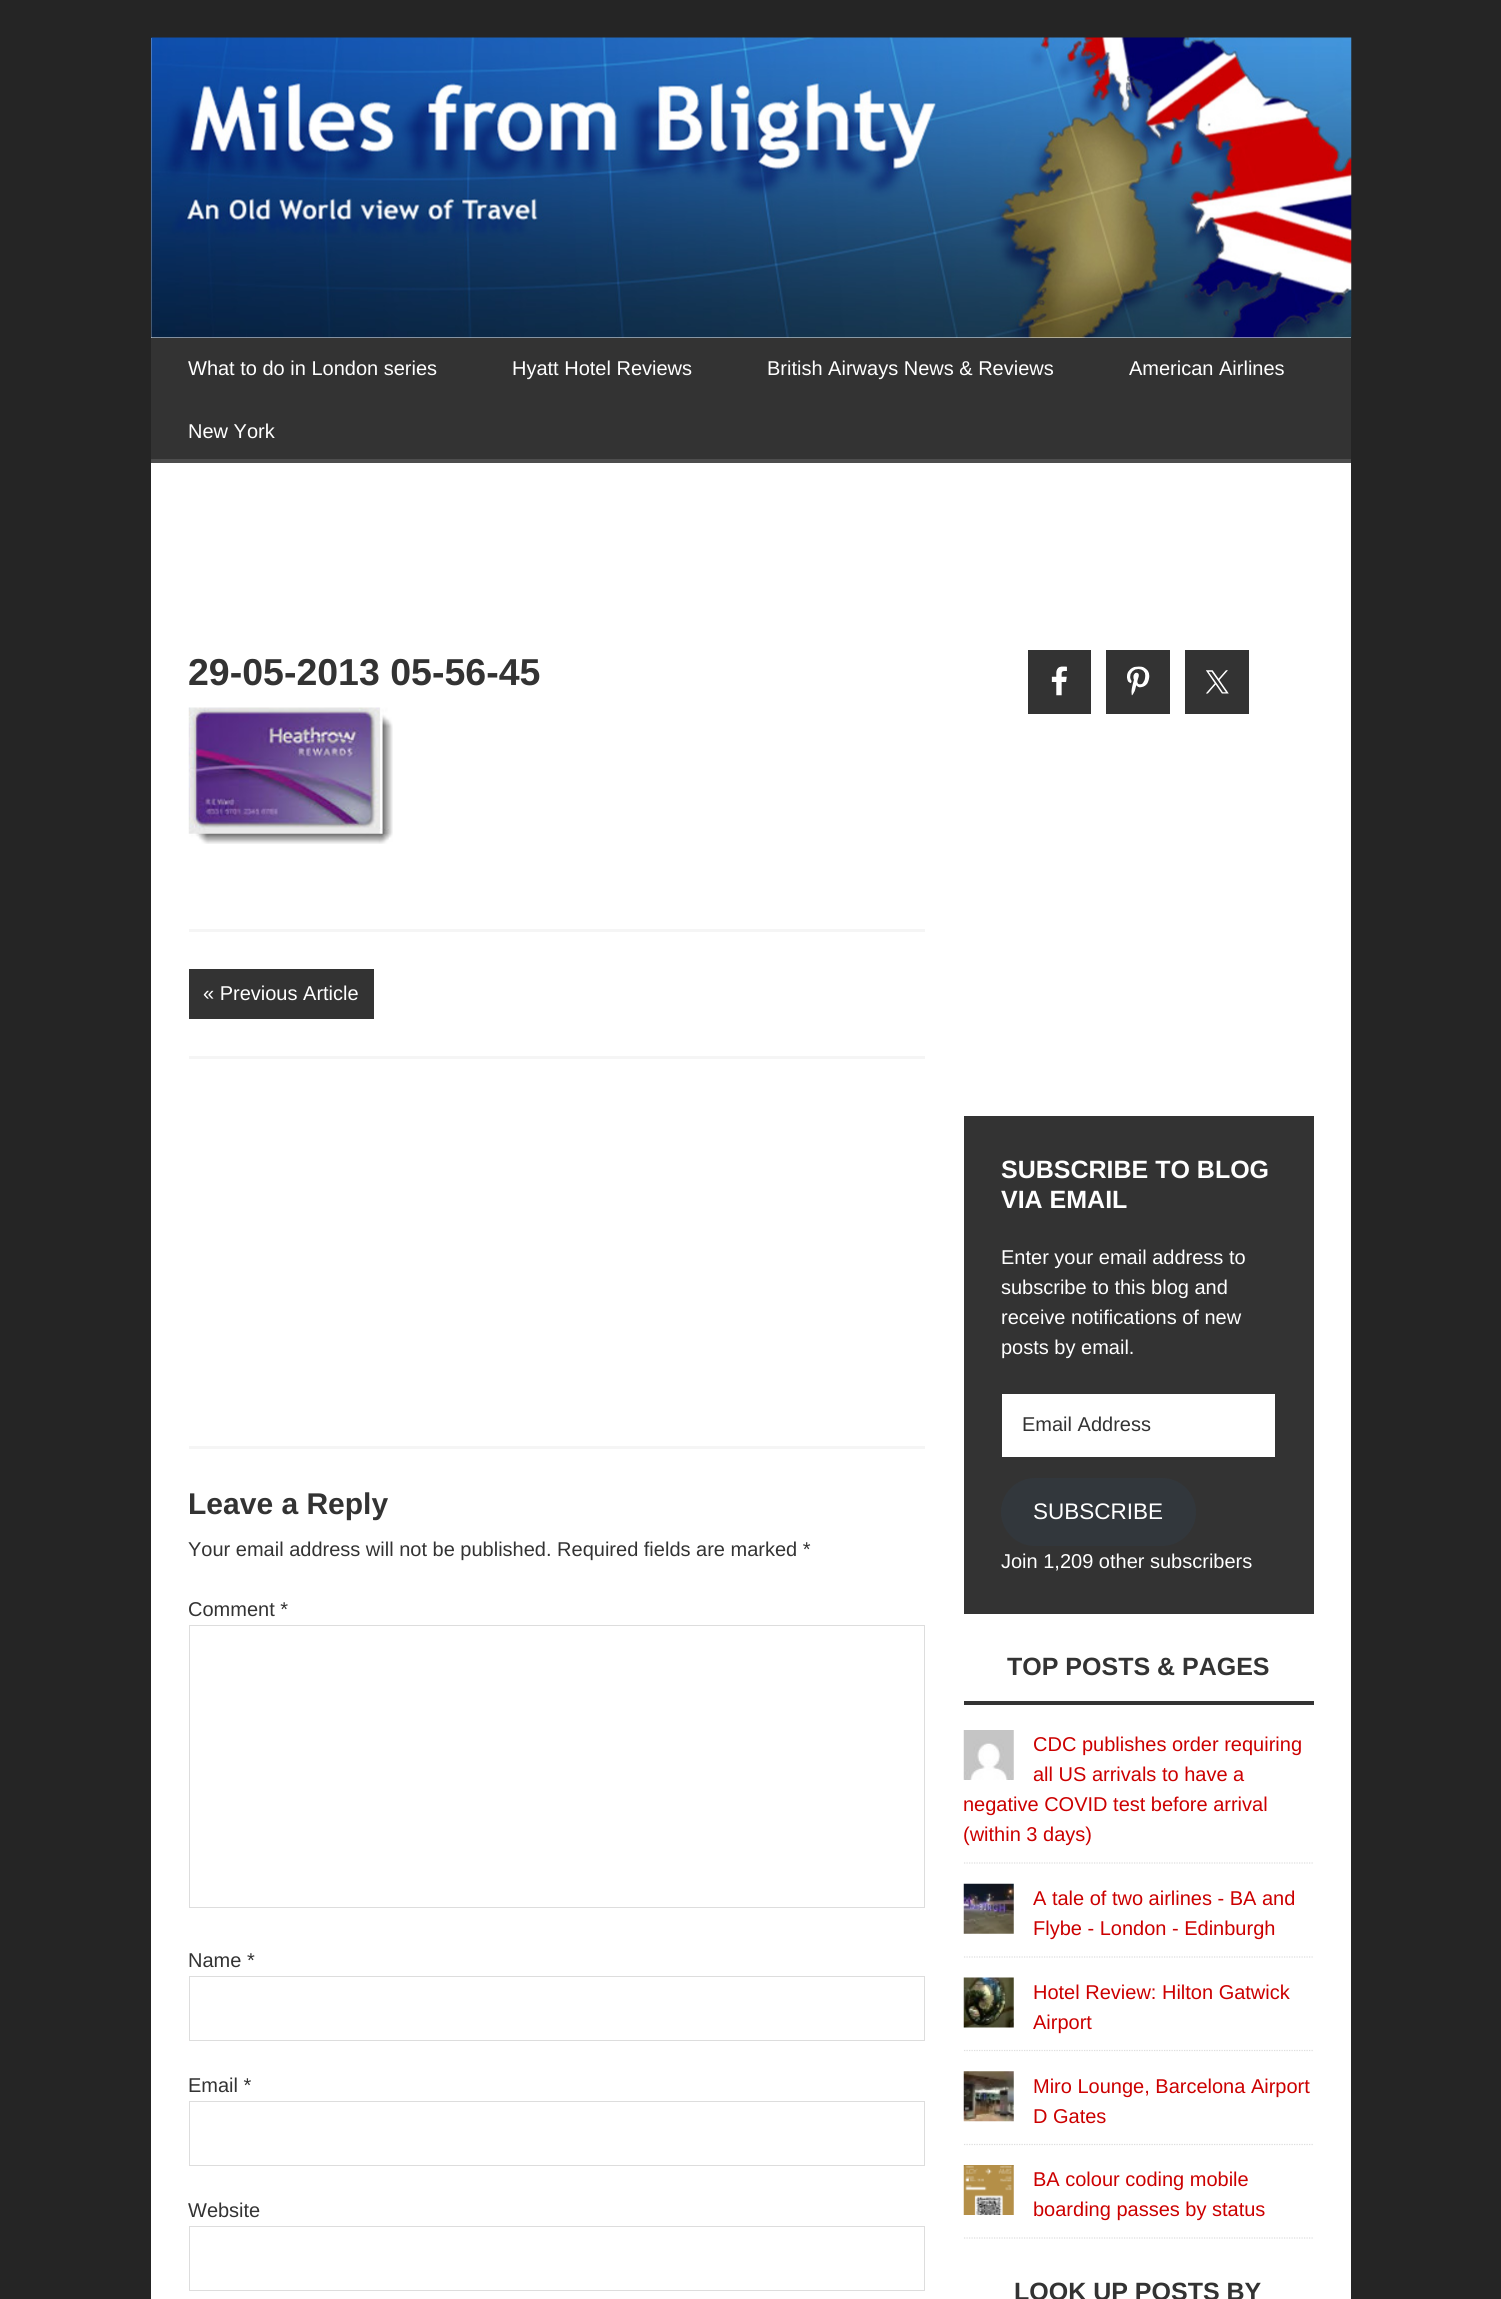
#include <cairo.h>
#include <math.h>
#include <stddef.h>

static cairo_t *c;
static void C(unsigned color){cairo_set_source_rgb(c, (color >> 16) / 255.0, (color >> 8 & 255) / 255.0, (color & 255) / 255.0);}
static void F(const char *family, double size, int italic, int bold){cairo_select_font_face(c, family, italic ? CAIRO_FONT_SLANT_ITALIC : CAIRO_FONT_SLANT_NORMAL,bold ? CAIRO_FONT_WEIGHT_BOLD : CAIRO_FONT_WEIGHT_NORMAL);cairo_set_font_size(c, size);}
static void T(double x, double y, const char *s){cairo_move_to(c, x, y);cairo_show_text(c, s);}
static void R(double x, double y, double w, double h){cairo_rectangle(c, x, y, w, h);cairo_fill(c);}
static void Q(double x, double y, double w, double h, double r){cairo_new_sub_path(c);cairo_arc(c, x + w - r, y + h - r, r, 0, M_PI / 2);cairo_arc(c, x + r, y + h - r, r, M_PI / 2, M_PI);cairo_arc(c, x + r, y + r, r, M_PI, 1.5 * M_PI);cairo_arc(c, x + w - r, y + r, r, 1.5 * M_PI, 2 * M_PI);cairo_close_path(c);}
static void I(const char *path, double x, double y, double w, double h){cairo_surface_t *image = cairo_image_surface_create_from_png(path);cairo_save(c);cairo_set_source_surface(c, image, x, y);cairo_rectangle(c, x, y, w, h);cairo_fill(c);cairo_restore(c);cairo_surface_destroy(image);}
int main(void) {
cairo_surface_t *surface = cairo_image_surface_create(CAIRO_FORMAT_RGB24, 1501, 2299);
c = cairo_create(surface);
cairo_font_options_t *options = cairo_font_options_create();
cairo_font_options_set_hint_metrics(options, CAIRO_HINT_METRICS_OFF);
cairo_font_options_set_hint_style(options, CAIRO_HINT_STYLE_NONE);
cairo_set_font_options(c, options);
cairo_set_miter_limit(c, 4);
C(0x252525);
cairo_paint(c);
C(0xffffff);
R(151,38,1200,2261);
I("1.png",151,37,1201,301);
C(0x333333);
R(151,338,1200,121);
C(0x4d4d4d);
R(151,459,1200,4);
F("Liberation Sans",20,0,0);
C(0xffffff);
T(188,375,"What to do in London series");
T(512,375,"Hyatt Hotel Reviews");
T(767,375,"British Airways News & Reviews");
T(1129,375,"American Airlines");
T(188,438,"New York");
F("Liberation Sans",37.5,0,1);
C(0x333333);
T(188,685,"29-05-2013 05-56-45");
I("2.png",188,707,205,137);
C(0xf5f5f5);
R(189,929,736,3);
C(0x333333);
R(189,969,185,50);
F("Liberation Sans",20,0,0);
C(0xffffff);
T(203,1000,"« Previous Article");
C(0xf5f5f5);
R(189,1056,736,3);
R(189,1446,736,3);
F("Liberation Sans",30,0,1);
C(0x333333);
T(188,1514,"Leave a Reply");
F("Liberation Sans",20,0,0);
T(188,1556,"Your email address will not be published. Required fields are marked *");
T(188,1616,"Comment *");
cairo_rectangle(c,189.5,1625.5,735,282);
C(0xdddddd);
cairo_set_line_width(c,1);
cairo_stroke(c);
C(0x333333);
T(188,1967,"Name *");
cairo_rectangle(c,189.5,1976.5,735,64);
C(0xdddddd);
cairo_stroke(c);
C(0x333333);
T(188,2092,"Email *");
cairo_rectangle(c,189.5,2101.5,735,64);
C(0xdddddd);
cairo_stroke(c);
C(0x333333);
T(188,2217,"Website");
cairo_rectangle(c,189.5,2226.5,735,64);
C(0xdddddd);
cairo_stroke(c);
C(0x333333);
R(1028,650,63,64);
I("3.png",1051,666,16,30);
R(1106,650,64,64);
I("4.png",1127,666,23,30);
R(1185,650,64,64);
I("5.png",1206,670,23,24);
R(964,1116,350,498);
F("Liberation Sans",25,0,1);
C(0xffffff);
T(1001,1178,"SUBSCRIBE TO BLOG");
T(1001,1208,"VIA EMAIL");
F("Liberation Sans",20,0,0);
T(1001,1264,"Enter your email address to");
T(1001,1294,"subscribe to this blog and");
T(1001,1324,"receive notifications of new");
T(1001,1354,"posts by email.");
R(1002,1394,273,63);
C(0x333333);
T(1022,1431,"Email Address");
C(0x32373c);
Q(1001,1478,195,68,34);
cairo_fill(c);
F("Liberation Sans",22.5,0,0);
C(0xffffff);
T(1033,1519,"SUBSCRIBE");
F("Liberation Sans",20,0,0);
T(1001,1568,"Join 1,209 other subscribers");
C(0x333333);
R(964,1701,350,4);
F("Liberation Sans",25,0,1);
T(1007,1675,"TOP POSTS & PAGES");
cairo_new_path(c);
cairo_move_to(c,964,1863);
cairo_line_to(c,1314,1863);
C(0xdddddd);
cairo_set_line_width(c,1.2);
cairo_set_dash(c,(double[]){1.25,1.25},2,0);
cairo_stroke(c);
I("6.png",963,1730,51,50);
F("Liberation Sans",20,0,0);
C(0xcc0000);
T(1033,1751,"CDC publishes order requiring");
T(1033,1781,"all US arrivals to have a");
T(963,1811,"negative COVID test before arrival");
T(963,1841,"(within 3 days)");
cairo_new_path(c);
cairo_move_to(c,964,1957);
cairo_line_to(c,1314,1957);
C(0xdddddd);
cairo_stroke(c);
I("7.png",963,1883,51,51);
C(0xcc0000);
T(1033,1905,"A tale of two airlines - BA and");
T(1033,1935,"Flybe - London - Edinburgh");
cairo_new_path(c);
cairo_move_to(c,964,2050.5);
cairo_line_to(c,1314,2050.5);
C(0xdddddd);
cairo_stroke(c);
I("8.png",963,1977,51,51);
C(0xcc0000);
T(1033,1999,"Hotel Review: Hilton Gatwick");
T(1033,2029,"Airport");
cairo_new_path(c);
cairo_move_to(c,964,2144.5);
cairo_line_to(c,1314,2144.5);
C(0xdddddd);
cairo_stroke(c);
I("9.png",963,2071,51,51);
C(0xcc0000);
T(1033,2093,"Miro Lounge, Barcelona Airport");
T(1033,2123,"D Gates");
cairo_new_path(c);
cairo_move_to(c,964,2238);
cairo_line_to(c,1314,2238);
C(0xdddddd);
cairo_stroke(c);
I("10.png",963,2165,51,50);
C(0xcc0000);
T(1033,2186,"BA colour coding mobile");
T(1033,2216,"boarding passes by status");
F("Liberation Sans",25,0,1);
C(0x333333);
T(1014,2300,"LOOK UP POSTS BY");
cairo_surface_write_to_png(surface, "o.png");
cairo_font_options_destroy(options);
cairo_destroy(c);
cairo_surface_destroy(surface);
return 0;
}
